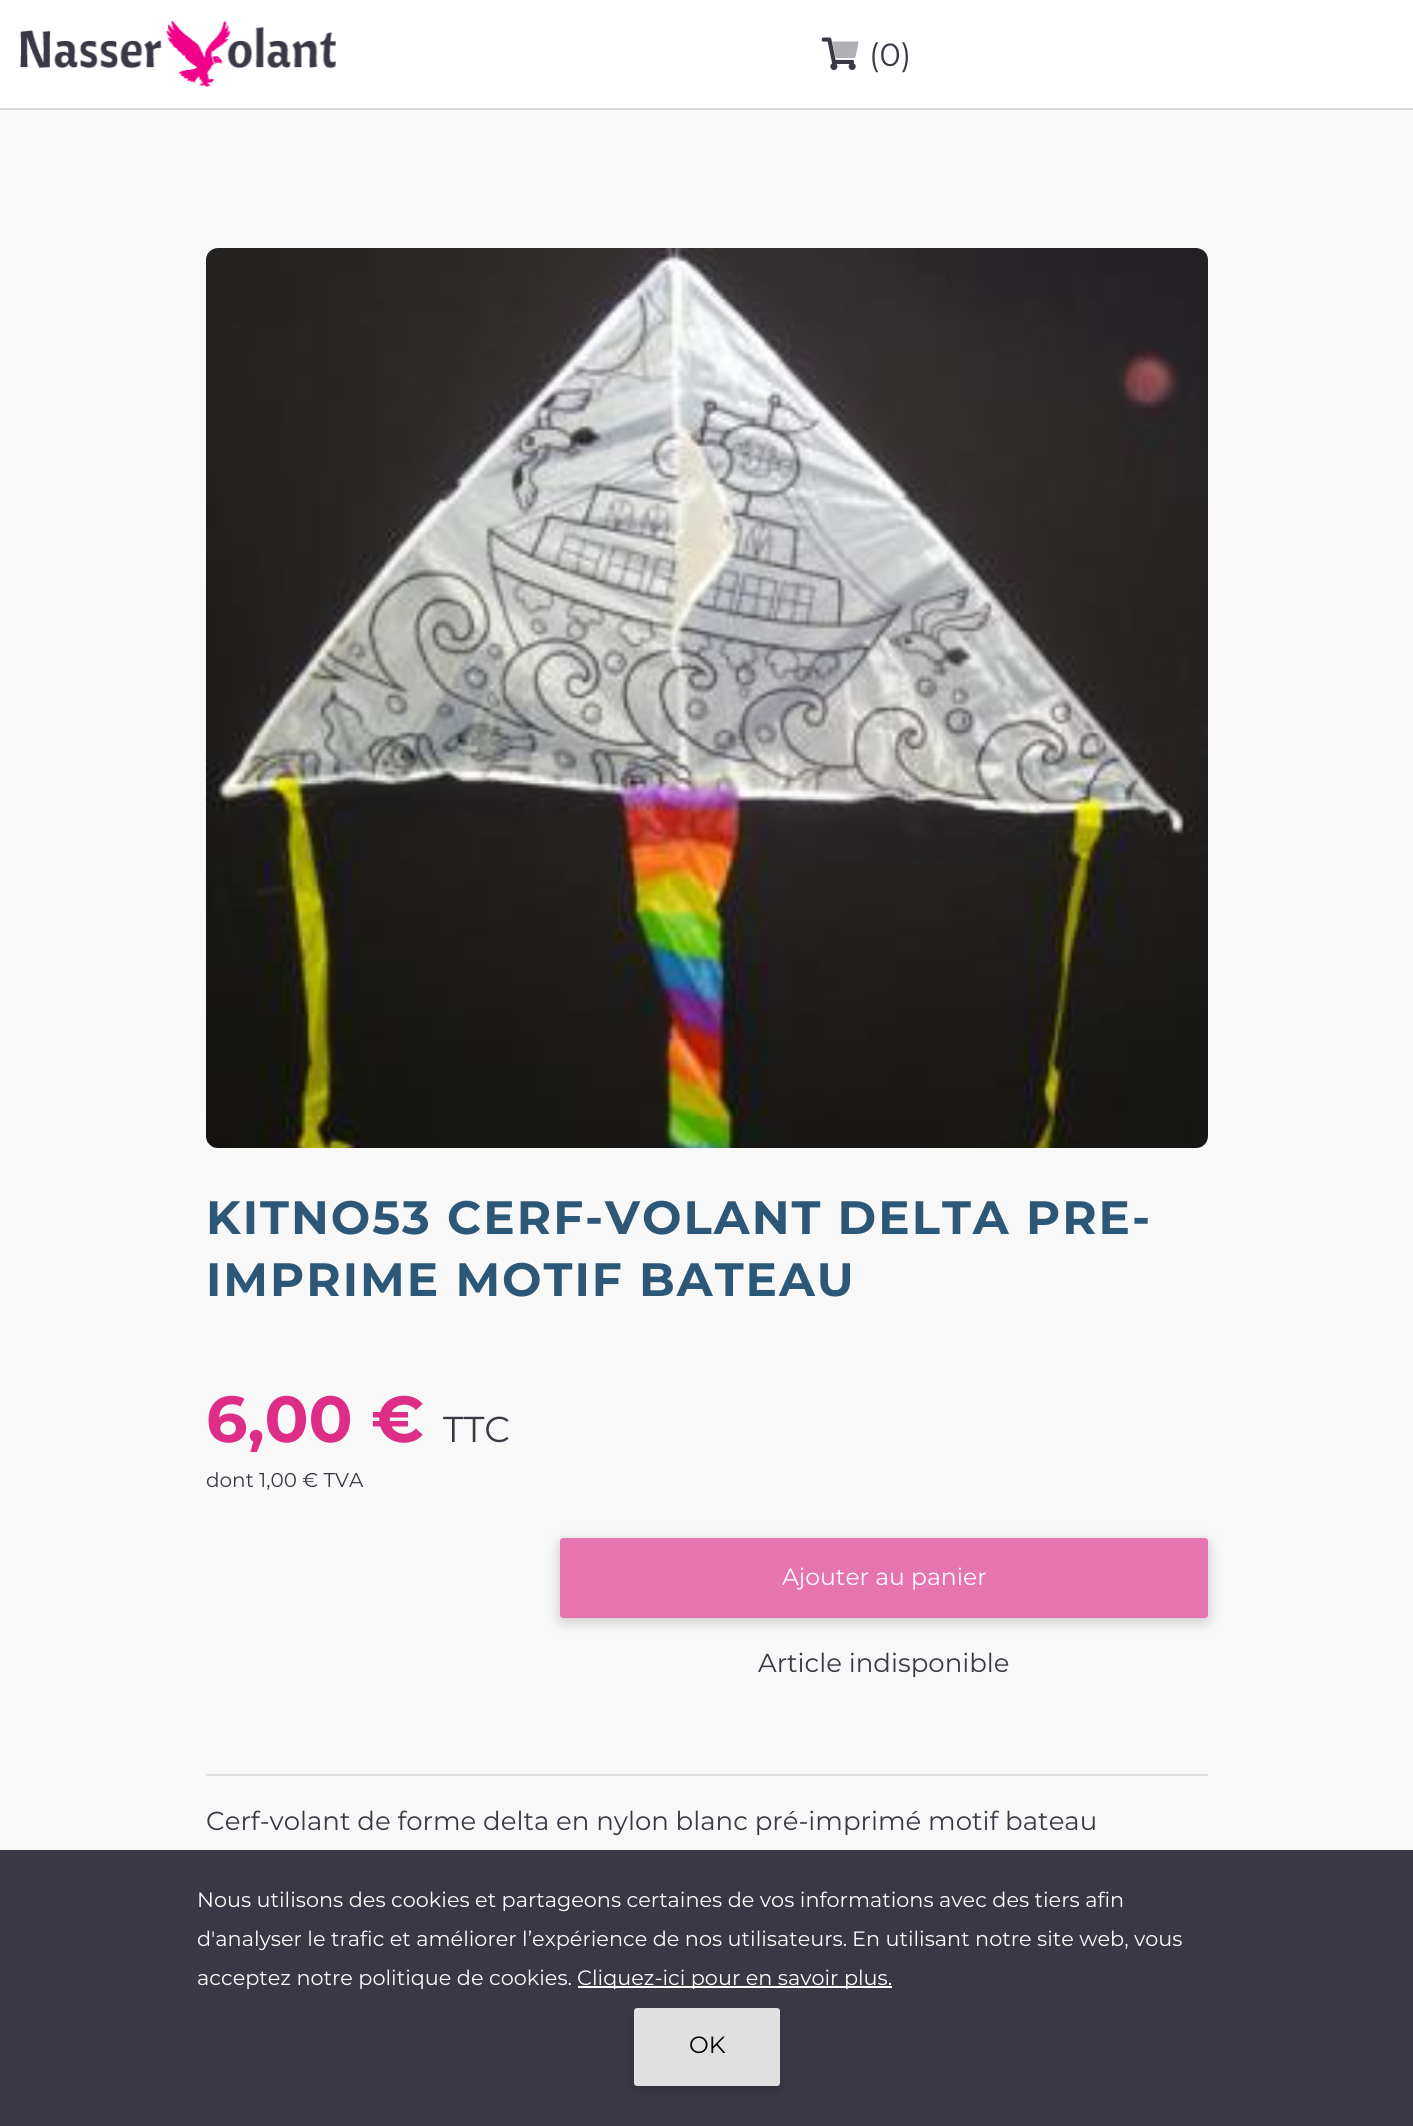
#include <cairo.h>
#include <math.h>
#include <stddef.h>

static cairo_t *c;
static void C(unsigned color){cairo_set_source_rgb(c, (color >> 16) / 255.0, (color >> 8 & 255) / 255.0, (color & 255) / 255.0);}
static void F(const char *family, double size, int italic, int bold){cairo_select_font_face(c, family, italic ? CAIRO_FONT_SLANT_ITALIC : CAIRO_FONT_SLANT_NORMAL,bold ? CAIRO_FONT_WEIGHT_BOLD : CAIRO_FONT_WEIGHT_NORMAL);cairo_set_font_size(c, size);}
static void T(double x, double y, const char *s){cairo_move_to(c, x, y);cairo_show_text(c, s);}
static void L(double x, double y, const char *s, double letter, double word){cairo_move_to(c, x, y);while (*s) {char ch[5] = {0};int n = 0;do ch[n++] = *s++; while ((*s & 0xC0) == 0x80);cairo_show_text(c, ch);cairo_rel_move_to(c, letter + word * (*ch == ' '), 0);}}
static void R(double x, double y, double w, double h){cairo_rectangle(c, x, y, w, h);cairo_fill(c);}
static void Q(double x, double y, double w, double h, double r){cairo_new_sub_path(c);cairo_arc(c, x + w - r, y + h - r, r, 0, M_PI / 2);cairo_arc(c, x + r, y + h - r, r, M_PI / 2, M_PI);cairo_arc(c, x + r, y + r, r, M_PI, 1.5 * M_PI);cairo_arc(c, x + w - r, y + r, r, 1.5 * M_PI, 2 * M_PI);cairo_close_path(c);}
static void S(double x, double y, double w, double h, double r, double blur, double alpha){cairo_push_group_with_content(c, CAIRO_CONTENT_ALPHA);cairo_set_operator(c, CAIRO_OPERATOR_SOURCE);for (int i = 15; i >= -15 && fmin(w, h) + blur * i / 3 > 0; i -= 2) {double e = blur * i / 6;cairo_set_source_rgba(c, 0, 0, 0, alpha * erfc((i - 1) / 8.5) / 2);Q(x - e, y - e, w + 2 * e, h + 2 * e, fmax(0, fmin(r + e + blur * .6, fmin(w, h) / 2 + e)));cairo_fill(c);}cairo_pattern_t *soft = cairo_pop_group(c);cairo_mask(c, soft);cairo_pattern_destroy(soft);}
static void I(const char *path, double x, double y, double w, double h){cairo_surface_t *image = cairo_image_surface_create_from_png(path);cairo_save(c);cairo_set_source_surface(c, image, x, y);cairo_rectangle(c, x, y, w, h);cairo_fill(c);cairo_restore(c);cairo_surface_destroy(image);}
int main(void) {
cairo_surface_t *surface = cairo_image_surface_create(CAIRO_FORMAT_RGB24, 1413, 2126);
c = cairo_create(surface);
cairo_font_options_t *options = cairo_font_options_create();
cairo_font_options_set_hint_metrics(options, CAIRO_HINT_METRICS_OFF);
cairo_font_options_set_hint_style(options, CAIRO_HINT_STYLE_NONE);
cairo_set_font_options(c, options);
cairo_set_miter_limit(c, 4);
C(0xf8f8f8);
cairo_paint(c);
C(0xffffff);
R(0,0,1413,108);
C(0xd8d7da);
R(0,108,1413,2);
I("1.png",20,20,316,68);
I("2.png",821,37,35,33);
cairo_set_source_rgba(c,0.227,0.22,0.267,0.4);
cairo_new_path(c);
cairo_move_to(c,857,41.5);
cairo_curve_to(c,859.5,41.5,858,44.5,858,45.5);
cairo_line_to(c,856,54.5);
cairo_curve_to(c,855,58.5,855.5,58,851,58);
cairo_line_to(c,835.5,58);
cairo_line_to(c,832,41.5);
cairo_close_path(c);
cairo_fill(c);
F("Montserrat",32,0,0);
C(0x3a3844);
T(869,66,"(0)");
I("3.png",206,248,1002,900);
F("Montserrat",46.8,0,1);
C(0x2d5777);
L(206,1234,"KITNO53 CERF-VOLANT DELTA PRE-",2,0);
L(206,1296,"IMPRIME MOTIF BATEAU",2,0);
F("Montserrat",65,0,1);
C(0xdd2d87);
T(206,1442,"6,00 €");
F("Montserrat",36,0,0);
C(0x3a3844);
T(443,1442,"TTC");
F("Montserrat",20,0,0);
T(206,1487,"dont 1,00 € TVA");
C(0x575757);
S(560,1542,648,80,3,10,.12);
S(560,1542,648,80,3,5,.16);
C(0xe674af);
Q(560,1538,648,80,3);
cairo_fill(c);
F("Montserrat",23.5,0,0);
C(0xfdfdfd);
T(782,1585,"Ajouter au panier");
F("Montserrat",26,0,0);
C(0x3a3844);
T(758,1672,"Article indisponible");
C(0xdfdfdf);
R(206,1774,1002,2);
C(0x3a3844);
T(206,1830,"Cerf-volant de forme delta en nylon blanc pré-imprimé motif bateau");
R(0,1850,1413,276);
F("Montserrat",20.8,0,0);
C(0xfdfdfd);
T(197,1907,"Nous utilisons des cookies et partageons certaines de vos informations avec des tiers afin");
T(197,1946,"d'analyser le trafic et améliorer l’expérience de nos utilisateurs.");
T(852,1946,"En utilisant notre site web, vous");
T(197,1985,"acceptez notre politique de cookies.");
C(0xffffff);
R(578,1986,314,2);
C(0xfdfdfd);
T(577,1985,"Cliquez-ici pour en savoir plus.");
C(0x000000);
S(634,2012,146,78,3,5,.16);
C(0xe0e0e0);
Q(634,2008,146,78,3);
cairo_fill(c);
F("Montserrat",23.5,0,0);
C(0x000000);
T(689,2053,"OK");
cairo_surface_write_to_png(surface, "o.png");
cairo_font_options_destroy(options);
cairo_destroy(c);
cairo_surface_destroy(surface);
return 0;
}
